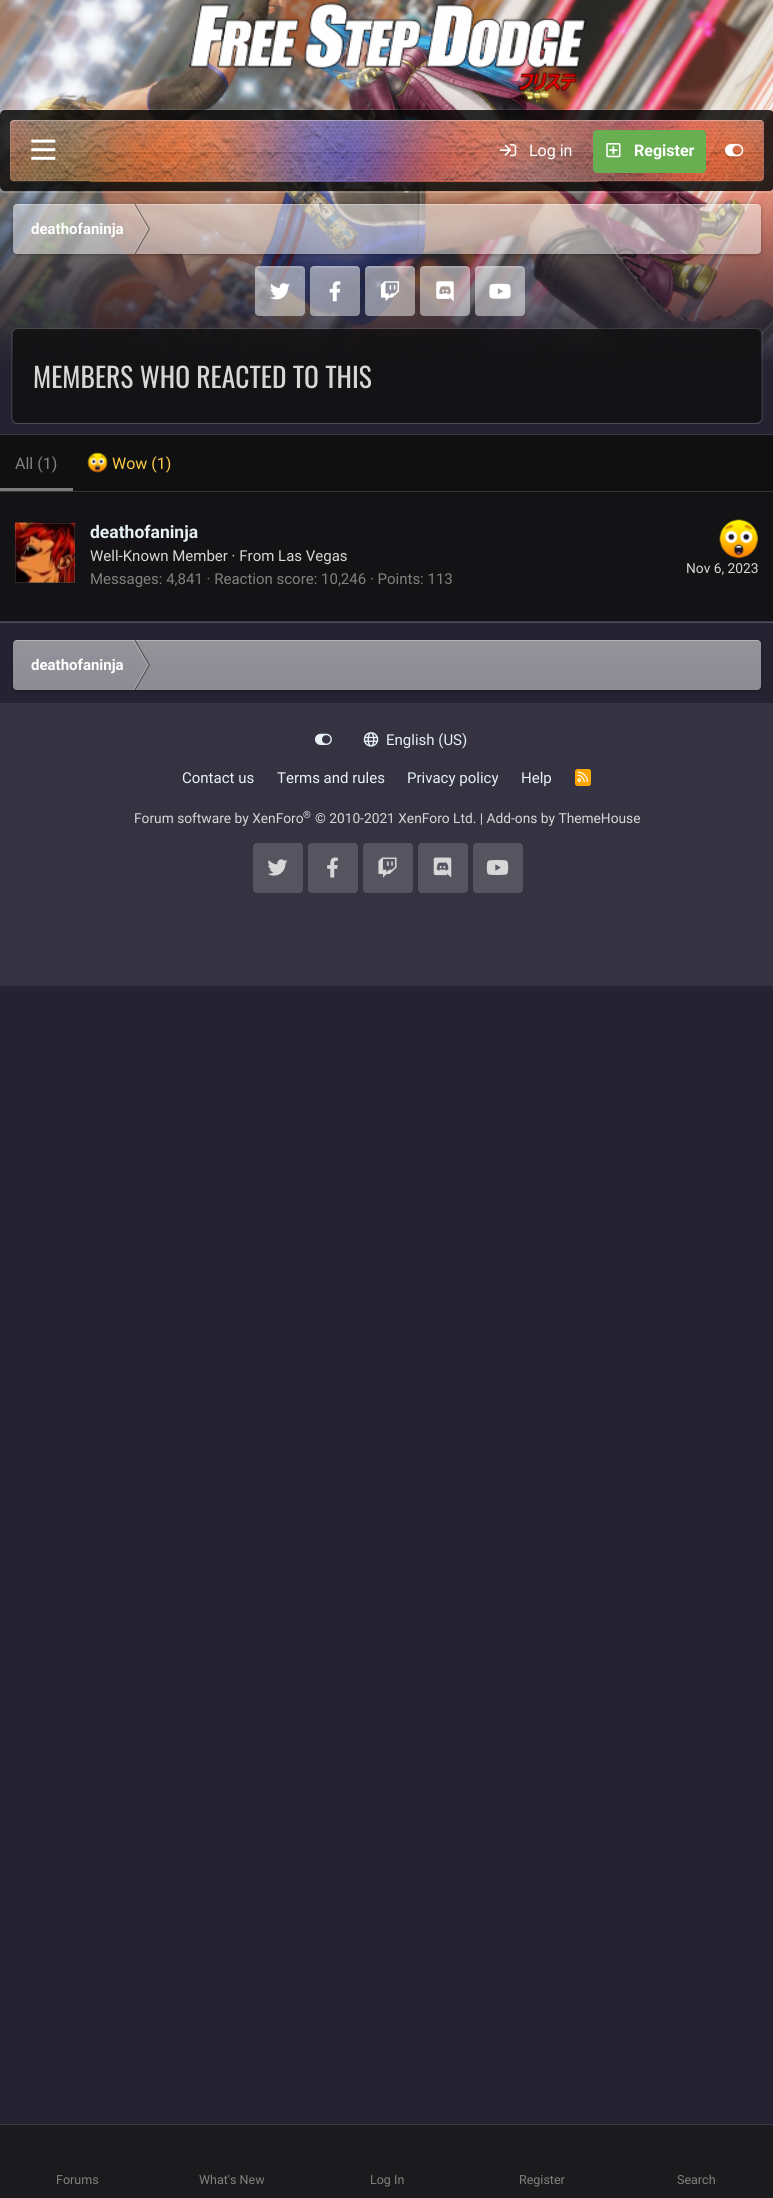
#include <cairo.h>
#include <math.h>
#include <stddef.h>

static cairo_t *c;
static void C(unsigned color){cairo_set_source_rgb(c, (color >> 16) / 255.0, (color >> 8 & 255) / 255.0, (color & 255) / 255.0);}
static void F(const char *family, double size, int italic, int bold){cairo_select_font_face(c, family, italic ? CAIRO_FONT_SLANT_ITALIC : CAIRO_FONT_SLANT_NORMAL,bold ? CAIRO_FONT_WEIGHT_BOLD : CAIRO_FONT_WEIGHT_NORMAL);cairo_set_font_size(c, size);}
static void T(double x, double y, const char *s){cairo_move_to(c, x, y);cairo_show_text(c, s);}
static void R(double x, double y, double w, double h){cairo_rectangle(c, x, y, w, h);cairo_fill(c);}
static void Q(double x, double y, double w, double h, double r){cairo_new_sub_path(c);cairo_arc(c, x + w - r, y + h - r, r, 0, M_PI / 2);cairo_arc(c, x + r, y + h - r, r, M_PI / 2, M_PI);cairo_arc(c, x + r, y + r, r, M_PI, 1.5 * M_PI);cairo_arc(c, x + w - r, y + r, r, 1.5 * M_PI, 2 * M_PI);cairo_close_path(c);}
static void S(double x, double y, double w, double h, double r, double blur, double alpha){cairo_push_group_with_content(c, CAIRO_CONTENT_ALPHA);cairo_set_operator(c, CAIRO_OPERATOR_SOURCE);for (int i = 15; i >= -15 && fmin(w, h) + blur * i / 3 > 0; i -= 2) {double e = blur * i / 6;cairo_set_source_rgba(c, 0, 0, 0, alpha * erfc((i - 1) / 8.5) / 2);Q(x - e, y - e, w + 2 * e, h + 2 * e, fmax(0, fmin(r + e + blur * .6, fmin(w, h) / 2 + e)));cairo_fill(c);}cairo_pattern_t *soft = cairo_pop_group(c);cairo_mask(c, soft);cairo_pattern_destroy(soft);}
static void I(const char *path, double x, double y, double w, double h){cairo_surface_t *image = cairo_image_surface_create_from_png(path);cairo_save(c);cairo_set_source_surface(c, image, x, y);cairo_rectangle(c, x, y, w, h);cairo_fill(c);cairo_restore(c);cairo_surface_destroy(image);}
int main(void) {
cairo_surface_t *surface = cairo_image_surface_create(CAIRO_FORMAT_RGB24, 773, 2198);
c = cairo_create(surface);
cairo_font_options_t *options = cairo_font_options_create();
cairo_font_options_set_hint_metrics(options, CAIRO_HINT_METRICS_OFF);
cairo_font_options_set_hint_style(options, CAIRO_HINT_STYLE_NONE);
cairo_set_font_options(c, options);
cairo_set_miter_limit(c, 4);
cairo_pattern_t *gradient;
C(0x252332);
cairo_paint(c);
I("1.png",0,0,773,362);
gradient = cairo_pattern_create_linear(387,179,387,373);
cairo_pattern_add_color_stop_rgba(gradient,0,0.145,0.137,0.196,0);
cairo_pattern_add_color_stop_rgba(gradient,.95,0.145,0.137,0.196,1);
cairo_set_source(c,gradient);
cairo_pattern_destroy(gradient);
R(0,183,773,179);
I("2.png",188,2,399,90);
cairo_set_source_rgba(c,1,1,1,0.1);
cairo_new_path(c);
cairo_move_to(c,0,186);
cairo_line_to(c,0,188);
cairo_curve_to(c,0,191,2,193,5,193);
cairo_line_to(c,769,193);
cairo_curve_to(c,772,193,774,191,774,188);
cairo_line_to(c,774,114);
cairo_line_to(c,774,186);
cairo_curve_to(c,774,189,772,191,769,191);
cairo_line_to(c,5,191);
cairo_curve_to(c,2,191,0,189,0,186);
cairo_close_path(c);
cairo_fill(c);
Q(-.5,109.5,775,83,5.5);
cairo_set_line_width(c,1);
cairo_stroke(c);
cairo_set_source_rgba(c,0.039,0.039,0.039,0.85);
Q(0,110,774,81,5);
cairo_fill(c);
cairo_save(c);
cairo_set_fill_rule(c,CAIRO_FILL_RULE_EVEN_ODD);
cairo_new_path(c);
cairo_move_to(c,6,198);
cairo_line_to(c,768,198);
cairo_line_to(c,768,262);
cairo_line_to(c,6,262);
cairo_close_path(c);
cairo_move_to(c,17,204);
cairo_line_to(c,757,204);
cairo_curve_to(c,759,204,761,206,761,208);
cairo_line_to(c,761,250);
cairo_curve_to(c,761,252,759,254,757,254);
cairo_line_to(c,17,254);
cairo_curve_to(c,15,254,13,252,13,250);
cairo_line_to(c,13,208);
cairo_curve_to(c,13,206,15,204,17,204);
cairo_close_path(c);
cairo_clip(c);
C(0x000000);
S(13,205,748,50,4,2,.3);
cairo_restore(c);
cairo_set_source_rgba(c,1,1,1,0.3);
Q(13,204,748,50,4);
cairo_fill(c);
gradient = cairo_pattern_create_linear(387,204,387,254);
cairo_pattern_add_color_stop_rgba(gradient,0,1,1,1,.3);
cairo_pattern_add_color_stop_rgba(gradient,1,1,1,1,.25);
cairo_set_source(c,gradient);
cairo_pattern_destroy(gradient);
Q(13,204,748,50,4);
cairo_fill(c);
cairo_set_source_rgba(c,1,1,1,0.3);
cairo_new_path(c);
cairo_move_to(c,16,205);
cairo_line_to(c,758,205);
cairo_curve_to(c,760,205,761,207,761,209);
cairo_line_to(c,761,208);
cairo_curve_to(c,761,206,759,204,757,204);
cairo_line_to(c,17,204);
cairo_curve_to(c,16,204,14,205,14,206);
cairo_close_path(c);
cairo_fill(c);
cairo_set_source_rgba(c,1,1,1,0.38);
cairo_new_path(c);
cairo_move_to(c,133,204);
cairo_line_to(c,134,204);
cairo_line_to(c,148.5,229);
cairo_line_to(c,147.5,229);
cairo_close_path(c);
cairo_fill(c);
cairo_set_source_rgba(c,0,0,0,0.4);
cairo_new_path(c);
cairo_move_to(c,134,204);
cairo_line_to(c,135.5,204);
cairo_line_to(c,150,229);
cairo_line_to(c,148.5,229);
cairo_close_path(c);
cairo_fill(c);
cairo_set_source_rgba(c,1,1,1,0.38);
cairo_new_path(c);
cairo_move_to(c,147.5,229);
cairo_line_to(c,148.5,229);
cairo_line_to(c,134,254);
cairo_line_to(c,133,254);
cairo_close_path(c);
cairo_fill(c);
cairo_set_source_rgba(c,0,0,0,0.4);
cairo_new_path(c);
cairo_move_to(c,148.5,229);
cairo_line_to(c,150,229);
cairo_line_to(c,135.5,254);
cairo_line_to(c,134,254);
cairo_close_path(c);
cairo_fill(c);
cairo_set_source_rgba(c,1,1,1,0.3);
Q(255,266,50,50,4);
cairo_fill(c);
gradient = cairo_pattern_create_linear(280,266,280,316);
cairo_pattern_add_color_stop_rgba(gradient,0,1,1,1,.3);
cairo_pattern_add_color_stop_rgba(gradient,1,1,1,1,.25);
cairo_set_source(c,gradient);
cairo_pattern_destroy(gradient);
Q(255,266,50,50,4);
cairo_fill(c);
cairo_set_source_rgba(c,1,1,1,0.15);
cairo_new_path(c);
cairo_move_to(c,259,268);
cairo_line_to(c,301,268);
cairo_curve_to(c,303,268,305,269,305,271);
cairo_curve_to(c,305,265,299,266,294,266);
cairo_line_to(c,266,266);
cairo_curve_to(c,261,266,255,265,255,271);
cairo_curve_to(c,255,269,257,268,259,268);
cairo_close_path(c);
cairo_fill(c);
I("10.png",270,283,20,17);
cairo_set_source_rgba(c,1,1,1,0.3);
Q(310,266,50,50,4);
cairo_fill(c);
gradient = cairo_pattern_create_linear(335,266,335,316);
cairo_pattern_add_color_stop_rgba(gradient,0,1,1,1,.3);
cairo_pattern_add_color_stop_rgba(gradient,1,1,1,1,.25);
cairo_set_source(c,gradient);
cairo_pattern_destroy(gradient);
Q(310,266,50,50,4);
cairo_fill(c);
cairo_set_source_rgba(c,1,1,1,0.15);
cairo_new_path(c);
cairo_move_to(c,314,268);
cairo_line_to(c,356,268);
cairo_curve_to(c,358,268,360,269,360,271);
cairo_curve_to(c,360,265,354,266,349,266);
cairo_line_to(c,321,266);
cairo_curve_to(c,316,266,310,265,310,271);
cairo_curve_to(c,310,269,312,268,314,268);
cairo_close_path(c);
cairo_fill(c);
I("11.png",329,281,12,21);
cairo_set_source_rgba(c,1,1,1,0.3);
Q(365,266,50,50,4);
cairo_fill(c);
gradient = cairo_pattern_create_linear(390,266,390,316);
cairo_pattern_add_color_stop_rgba(gradient,0,1,1,1,.3);
cairo_pattern_add_color_stop_rgba(gradient,1,1,1,1,.25);
cairo_set_source(c,gradient);
cairo_pattern_destroy(gradient);
Q(365,266,50,50,4);
cairo_fill(c);
cairo_set_source_rgba(c,1,1,1,0.15);
cairo_new_path(c);
cairo_move_to(c,369,268);
cairo_line_to(c,411,268);
cairo_curve_to(c,413,268,415,269,415,271);
cairo_curve_to(c,415,265,409,266,404,266);
cairo_line_to(c,376,266);
cairo_curve_to(c,371,266,365,265,365,271);
cairo_curve_to(c,365,269,367,268,369,268);
cairo_close_path(c);
cairo_fill(c);
I("12.png",380,281,20,20);
cairo_set_source_rgba(c,1,1,1,0.3);
Q(420,266,50,50,4);
cairo_fill(c);
gradient = cairo_pattern_create_linear(445,266,445,316);
cairo_pattern_add_color_stop_rgba(gradient,0,1,1,1,.3);
cairo_pattern_add_color_stop_rgba(gradient,1,1,1,1,.25);
cairo_set_source(c,gradient);
cairo_pattern_destroy(gradient);
Q(420,266,50,50,4);
cairo_fill(c);
cairo_set_source_rgba(c,1,1,1,0.15);
cairo_new_path(c);
cairo_move_to(c,424,268);
cairo_line_to(c,466,268);
cairo_curve_to(c,468,268,470,269,470,271);
cairo_curve_to(c,470,265,464,266,459,266);
cairo_line_to(c,431,266);
cairo_curve_to(c,426,266,420,265,420,271);
cairo_curve_to(c,420,269,422,268,424,268);
cairo_close_path(c);
cairo_fill(c);
I("13.png",436,281,18,20);
cairo_set_source_rgba(c,1,1,1,0.3);
Q(475,266,50,50,4);
cairo_fill(c);
gradient = cairo_pattern_create_linear(500,266,500,316);
cairo_pattern_add_color_stop_rgba(gradient,0,1,1,1,.3);
cairo_pattern_add_color_stop_rgba(gradient,1,1,1,1,.25);
cairo_set_source(c,gradient);
cairo_pattern_destroy(gradient);
Q(475,266,50,50,4);
cairo_fill(c);
cairo_set_source_rgba(c,1,1,1,0.15);
cairo_new_path(c);
cairo_move_to(c,479,268);
cairo_line_to(c,521,268);
cairo_curve_to(c,523,268,525,269,525,271);
cairo_curve_to(c,525,265,519,266,514,266);
cairo_line_to(c,486,266);
cairo_curve_to(c,481,266,475,265,475,271);
cairo_curve_to(c,475,269,477,268,479,268);
cairo_close_path(c);
cairo_fill(c);
I("14.png",489,283,22,16);
C(0x3b3947);
cairo_new_path(c);
cairo_move_to(c,13,420);
cairo_curve_to(c,13,422,16,424,18,424);
cairo_line_to(c,756,424);
cairo_curve_to(c,759,424,761,422,761,419);
cairo_curve_to(c,760,421,758,422,756,422);
cairo_line_to(c,18,422);
cairo_curve_to(c,16,422,14,421,13,420);
cairo_close_path(c);
cairo_fill(c);
Q(11.5,328.5,751,95,5.5);
cairo_set_source_rgba(c,1,1,1,0.1);
cairo_stroke(c);
cairo_set_source_rgba(c,0.063,0.063,0.063,0.85);
Q(13,329,748,94,5);
cairo_fill(c);
cairo_save(c);
Q(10,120,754,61,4);
cairo_clip(c);
C(0x262050);
S(-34,76,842,149,0,44,1);
cairo_restore(c);
I("3.png",10,120,754,62);
cairo_set_source_rgba(c,1,1,1,0.1);
Q(10,120,754,61,4);
cairo_fill(c);
I("4.png",10,120,754,61);
cairo_set_source_rgba(c,1,1,1,0.3);
cairo_new_path(c);
cairo_move_to(c,14,121);
cairo_curve_to(c,12,121,10,123,10,125);
cairo_line_to(c,10,124);
cairo_curve_to(c,10,122,12,120,14,120);
cairo_line_to(c,760,120);
cairo_curve_to(c,762,120,764,122,764,124);
cairo_line_to(c,764,125);
cairo_curve_to(c,764,123,762,121,760,121);
cairo_close_path(c);
cairo_fill(c);
Q(10.5,120.5,753,60,3.5);
cairo_set_source_rgba(c,1,1,1,0.1);
cairo_stroke(c);
I("5.png",15,120,55,61);
I("6.png",31,139,25,21);
I("7.png",500,144,17,13);
F("Roboto",16,0,0);
C(0xffffff);
T(529,156,"Log in");
C(0x67af51);
Q(593,130,113,43,4);
cairo_fill(c);
I("8.png",606,143,15,15);
F("Roboto",16,0,1);
C(0xffffff);
T(634,156,"Register");
I("9.png",725,144,19,13);
F("Roboto",15,0,1);
T(31,234,"deathofaninja");
F("Oswald",27.5,0,0);
C(0xd7d7d7);
T(33,388,"MEMBERS WHO REACTED TO THIS");
C(0x3b3947);
cairo_new_path(c);
cairo_move_to(c,0,621);
cairo_line_to(c,0,623);
cairo_line_to(c,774,623);
cairo_line_to(c,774,436);
cairo_line_to(c,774,621);
cairo_close_path(c);
cairo_fill(c);
cairo_rectangle(c,-.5,434.5,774,188);
cairo_set_source_rgba(c,1,1,1,0.1);
cairo_stroke(c);
C(0x131315);
R(0,435,773,186);
C(0x101011);
R(0,436,773,57);
C(0x363636);
R(0,491,773,1);
C(0x7c7c7c);
R(0,488,73,3);
F("Roboto",16,0,0);
C(0x818181);
T(15,469,"All (1)");
I("15.png",87,452,21,21);
C(0xfdca47);
T(112,469,"Wow (1)");
C(0x101011);
R(15,582,60,1);
I("16.png",15,522,60,61);
cairo_rectangle(c,15.5,523.5,59,59);
cairo_set_source_rgba(c,0.843,0.843,0.843,0.15);
cairo_stroke(c);
F("Roboto",17.5,0,1);
C(0xe7f1f6);
T(90,538,"deathofaninja");
F("Roboto",15,0,0);
C(0xd7d7d7);
T(90,561,"Well-Known Member · From Las Vegas");
I("17.png",719,519,39,39);
F("Roboto",13.75,0,0);
T(686,573,"Nov 6, 2023");
F("Roboto",15,0,0);
C(0x818181);
T(90,584,"Messages: 4,841 · Reaction score: 10,246 · Points: 113");
C(0x000000);
S(13,641,748,50,4,2,.3);
C(0x66656f);
Q(13,640,748,50,4);
cairo_fill(c);
gradient = cairo_pattern_create_linear(387,640,387,690);
cairo_pattern_add_color_stop_rgba(gradient,0,1,1,1,.3);
cairo_pattern_add_color_stop_rgba(gradient,1,1,1,1,.25);
cairo_set_source(c,gradient);
cairo_pattern_destroy(gradient);
Q(13,640,748,50,4);
cairo_fill(c);
cairo_set_source_rgba(c,1,1,1,0.3);
cairo_new_path(c);
cairo_move_to(c,16,641);
cairo_line_to(c,758,641);
cairo_curve_to(c,760,641,761,643,761,645);
cairo_line_to(c,761,644);
cairo_curve_to(c,761,642,759,640,757,640);
cairo_line_to(c,17,640);
cairo_curve_to(c,16,640,14,641,14,642);
cairo_close_path(c);
cairo_fill(c);
F("Roboto",15,0,1);
C(0xffffff);
T(31,670,"deathofaninja");
cairo_set_source_rgba(c,1,1,1,0.38);
cairo_new_path(c);
cairo_move_to(c,133,640);
cairo_line_to(c,134,640);
cairo_line_to(c,148.5,665);
cairo_line_to(c,147.5,665);
cairo_close_path(c);
cairo_fill(c);
cairo_set_source_rgba(c,0,0,0,0.4);
cairo_new_path(c);
cairo_move_to(c,134,640);
cairo_line_to(c,135.5,640);
cairo_line_to(c,150,665);
cairo_line_to(c,148.5,665);
cairo_close_path(c);
cairo_fill(c);
cairo_set_source_rgba(c,1,1,1,0.38);
cairo_new_path(c);
cairo_move_to(c,147.5,665);
cairo_line_to(c,148.5,665);
cairo_line_to(c,134,690);
cairo_line_to(c,133,690);
cairo_close_path(c);
cairo_fill(c);
cairo_set_source_rgba(c,0,0,0,0.4);
cairo_new_path(c);
cairo_move_to(c,148.5,665);
cairo_line_to(c,150,665);
cairo_line_to(c,135.5,690);
cairo_line_to(c,134,690);
cairo_close_path(c);
cairo_fill(c);
C(0x353341);
R(0,703,773,283);
I("18.png",315,733,17,12);
I("19.png",363,732,16,15);
F("Roboto",15,0,0);
C(0xe7f1f6);
T(386,745,"English (US)");
T(182,783,"Contact us");
T(277,783,"Terms and rules");
T(407,783,"Privacy policy");
T(521,783,"Help");
C(0xffa500);
Q(575,769,16,17,2.5);
cairo_fill(c);
I("20.png",577,771,11,11);
F("Roboto",13.75,0,0);
C(0xd7d7d7);
T(134,823,"Forum software by XenForo");
F("Roboto",10,0,0);
T(303,818,"®");
F("Roboto",13.75,0,0);
T(315,823,"© 2010-2021 XenForo Ltd. | Add-ons by ThemeHouse");
I("21.png",267,859,21,17);
cairo_set_source_rgba(c,0.843,0.843,0.843,0.2);
Q(253,843,50,50,4);
cairo_fill(c);
I("22.png",327,857,11,21);
Q(308,843,50,50,4);
cairo_fill(c);
I("23.png",378,857,19,21);
Q(363,843,50,50,4);
cairo_fill(c);
I("24.png",433,857,19,21);
Q(418,843,50,50,4);
cairo_fill(c);
I("25.png",486,860,23,15);
Q(473,843,50,50,4);
cairo_fill(c);
C(0x3b3947);
cairo_new_path(c);
cairo_move_to(c,0,2124);
cairo_line_to(c,0,2125);
cairo_line_to(c,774,2125);
cairo_line_to(c,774,2198);
cairo_line_to(c,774,2124);
cairo_close_path(c);
cairo_fill(c);
C(0x1b1b1e);
R(0,2125,773,73);
F("Roboto",12.5,0,0);
C(0x818181);
T(56,2184,"Forums");
T(199,2184,"What's New");
T(370,2184,"Log In");
T(519,2184,"Register");
T(677,2184,"Search");
cairo_surface_write_to_png(surface, "o.png");
cairo_font_options_destroy(options);
cairo_destroy(c);
cairo_surface_destroy(surface);
return 0;
}
